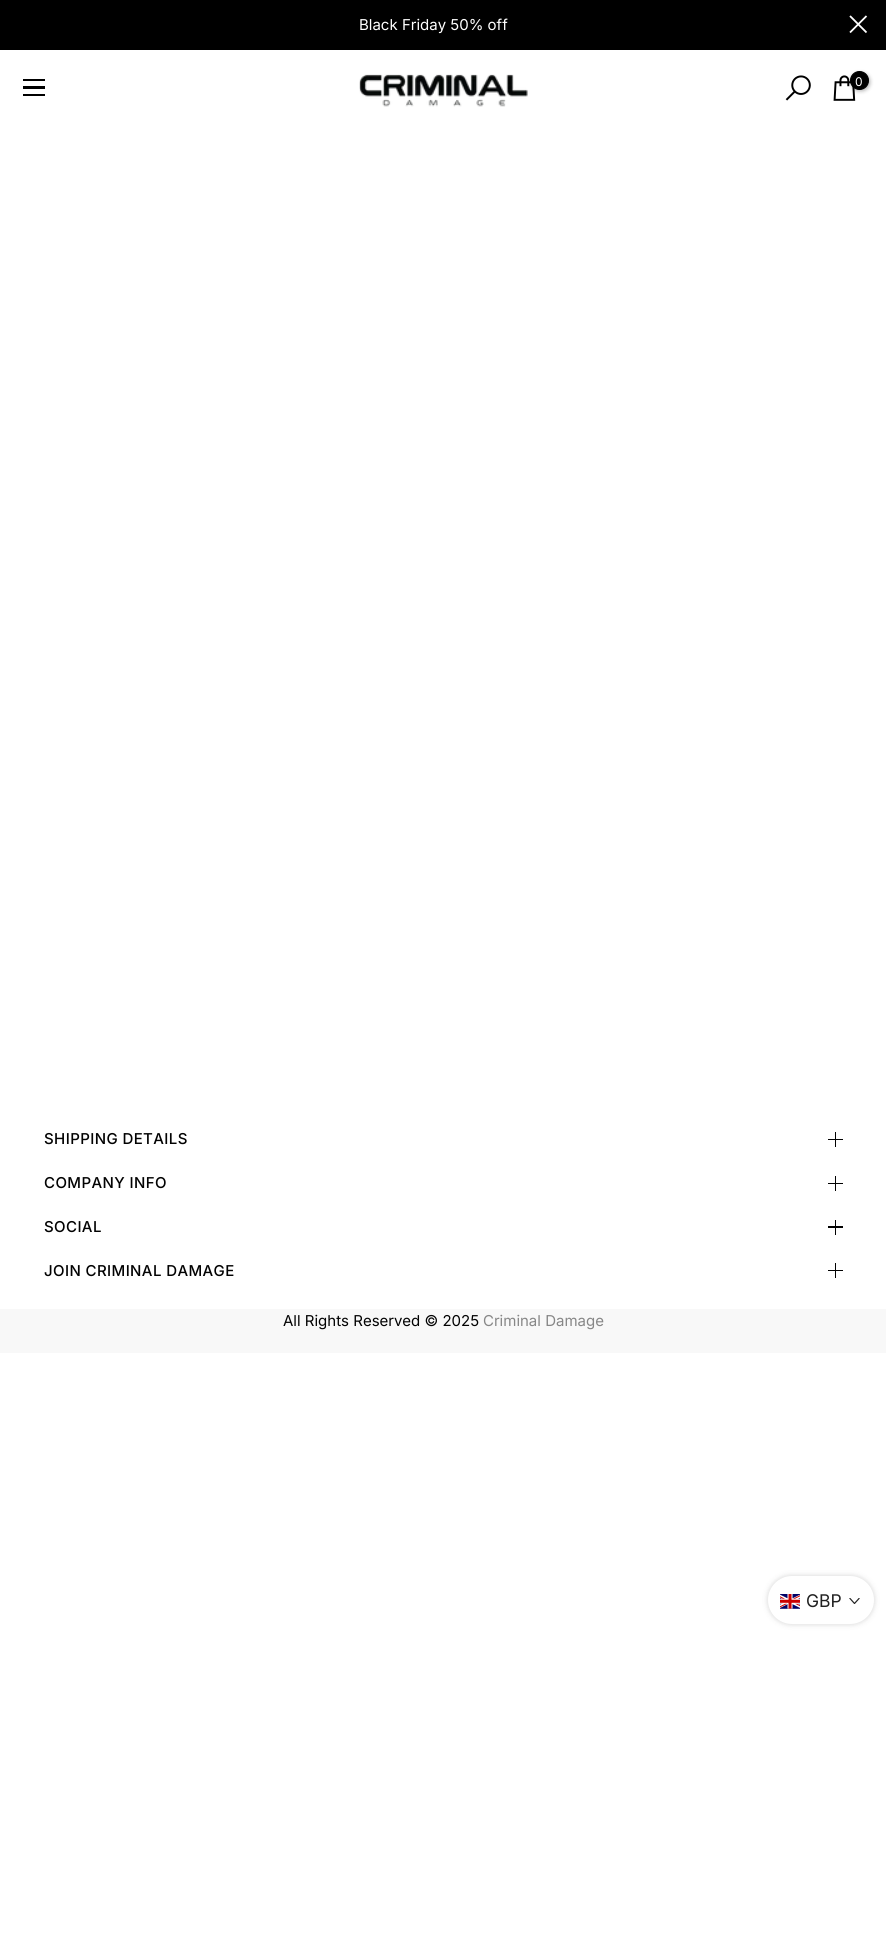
#include <cairo.h>
#include <math.h>
#include <stddef.h>

static cairo_t *c;
static void C(unsigned color){cairo_set_source_rgb(c, (color >> 16) / 255.0, (color >> 8 & 255) / 255.0, (color & 255) / 255.0);}
static void F(const char *family, double size, int italic, int bold){cairo_select_font_face(c, family, italic ? CAIRO_FONT_SLANT_ITALIC : CAIRO_FONT_SLANT_NORMAL,bold ? CAIRO_FONT_WEIGHT_BOLD : CAIRO_FONT_WEIGHT_NORMAL);cairo_set_font_size(c, size);}
static void T(double x, double y, const char *s){cairo_move_to(c, x, y);cairo_show_text(c, s);}
static void L(double x, double y, const char *s, double letter, double word){cairo_move_to(c, x, y);while (*s) {char ch[5] = {0};int n = 0;do ch[n++] = *s++; while ((*s & 0xC0) == 0x80);cairo_show_text(c, ch);cairo_rel_move_to(c, letter + word * (*ch == ' '), 0);}}
static void R(double x, double y, double w, double h){cairo_rectangle(c, x, y, w, h);cairo_fill(c);}
static void Q(double x, double y, double w, double h, double r){cairo_new_sub_path(c);cairo_arc(c, x + w - r, y + h - r, r, 0, M_PI / 2);cairo_arc(c, x + r, y + h - r, r, M_PI / 2, M_PI);cairo_arc(c, x + r, y + r, r, M_PI, 1.5 * M_PI);cairo_arc(c, x + w - r, y + r, r, 1.5 * M_PI, 2 * M_PI);cairo_close_path(c);}
static void S(double x, double y, double w, double h, double r, double blur, double alpha){cairo_push_group_with_content(c, CAIRO_CONTENT_ALPHA);cairo_set_operator(c, CAIRO_OPERATOR_SOURCE);for (int i = 15; i >= -15 && fmin(w, h) + blur * i / 3 > 0; i -= 2) {double e = blur * i / 6;cairo_set_source_rgba(c, 0, 0, 0, alpha * erfc((i - 1) / 8.5) / 2);Q(x - e, y - e, w + 2 * e, h + 2 * e, fmax(0, fmin(r + e + blur * .6, fmin(w, h) / 2 + e)));cairo_fill(c);}cairo_pattern_t *soft = cairo_pop_group(c);cairo_mask(c, soft);cairo_pattern_destroy(soft);}
static void I(const char *path, double x, double y, double w, double h){cairo_surface_t *image = cairo_image_surface_create_from_png(path);cairo_save(c);cairo_set_source_surface(c, image, x, y);cairo_rectangle(c, x, y, w, h);cairo_fill(c);cairo_restore(c);cairo_surface_destroy(image);}
int main(void) {
cairo_surface_t *surface = cairo_image_surface_create(CAIRO_FORMAT_RGB24, 886, 1953);
c = cairo_create(surface);
cairo_font_options_t *options = cairo_font_options_create();
cairo_font_options_set_hint_metrics(options, CAIRO_HINT_METRICS_OFF);
cairo_font_options_set_hint_style(options, CAIRO_HINT_STYLE_NONE);
cairo_set_font_options(c, options);
cairo_set_miter_limit(c, 4);
C(0xffffff);
cairo_paint(c);
C(0x000000);
R(0,0,886,50);
F("Inter",15,0,0);
C(0xffffff);
T(359,30,"Black Friday 50% off");
cairo_new_path(c);
cairo_move_to(c,866.5,16);
cairo_line_to(c,850,32.5);
cairo_move_to(c,866.5,32.5);
cairo_line_to(c,850,16);
cairo_set_line_width(c,1.8);
cairo_stroke(c);
C(0x000000);
R(23,79,22,2);
R(23,86,22,3);
R(23,94,22,2);
I("1.png",359,74,169,33);
I("2.png",785,75,26,26);
I("3.png",833,75,23,26);
C(0x000000);
S(851,73,19,18,9,2,.3);
C(0x000000);
cairo_arc(c,859.5,80.5,9,0,2 * M_PI);
cairo_fill_preserve(c);
cairo_set_line_width(c,1);
cairo_stroke(c);
F("Inter",12,0,0);
C(0xffffff);
T(855,86,"0");
F("Inter Medium",15,0,0);
C(0x020202);
L(44,1144,"SHIPPING DETAILS",.4,0);
R(835,1132,1,15);
R(828,1139,15,1);
L(44,1188,"COMPANY INFO",.4,0);
R(835,1176,1,15);
R(828,1183,15,1);
L(44,1232,"SOCIAL",.4,0);
R(835,1220,1,15);
R(828,1226,15,2);
L(44,1276,"JOIN CRIMINAL DAMAGE",.4,0);
R(835,1263,1,15);
R(828,1270,15,1);
C(0xf8f8f8);
R(0,1309,886,44);
F("Inter",15,0,0);
C(0x020202);
T(283,1326,"All Rights Reserved © 2025");
C(0x878787);
T(483,1326,"Criminal Damage");
C(0x000000);
S(768,1576,106,48,24,3,.17);
C(0xffffff);
Q(768,1576,106,48,24);
cairo_fill(c);
I("4.png",780,1594,20,15);
F("Inter",17.5,0,0);
C(0x222222);
T(806,1607,"GBP");
cairo_save(c);
cairo_rectangle(c,849,1598,11,6);
cairo_clip(c);
cairo_new_path(c);
cairo_move_to(c,859,1598.5);
cairo_line_to(c,854.5,1603.5);
cairo_line_to(c,850,1598.5);
cairo_set_line_width(c,1.2);
cairo_set_line_cap(c,CAIRO_LINE_CAP_SQUARE);
cairo_stroke(c);
cairo_restore(c);
cairo_surface_write_to_png(surface, "o.png");
cairo_font_options_destroy(options);
cairo_destroy(c);
cairo_surface_destroy(surface);
return 0;
}
